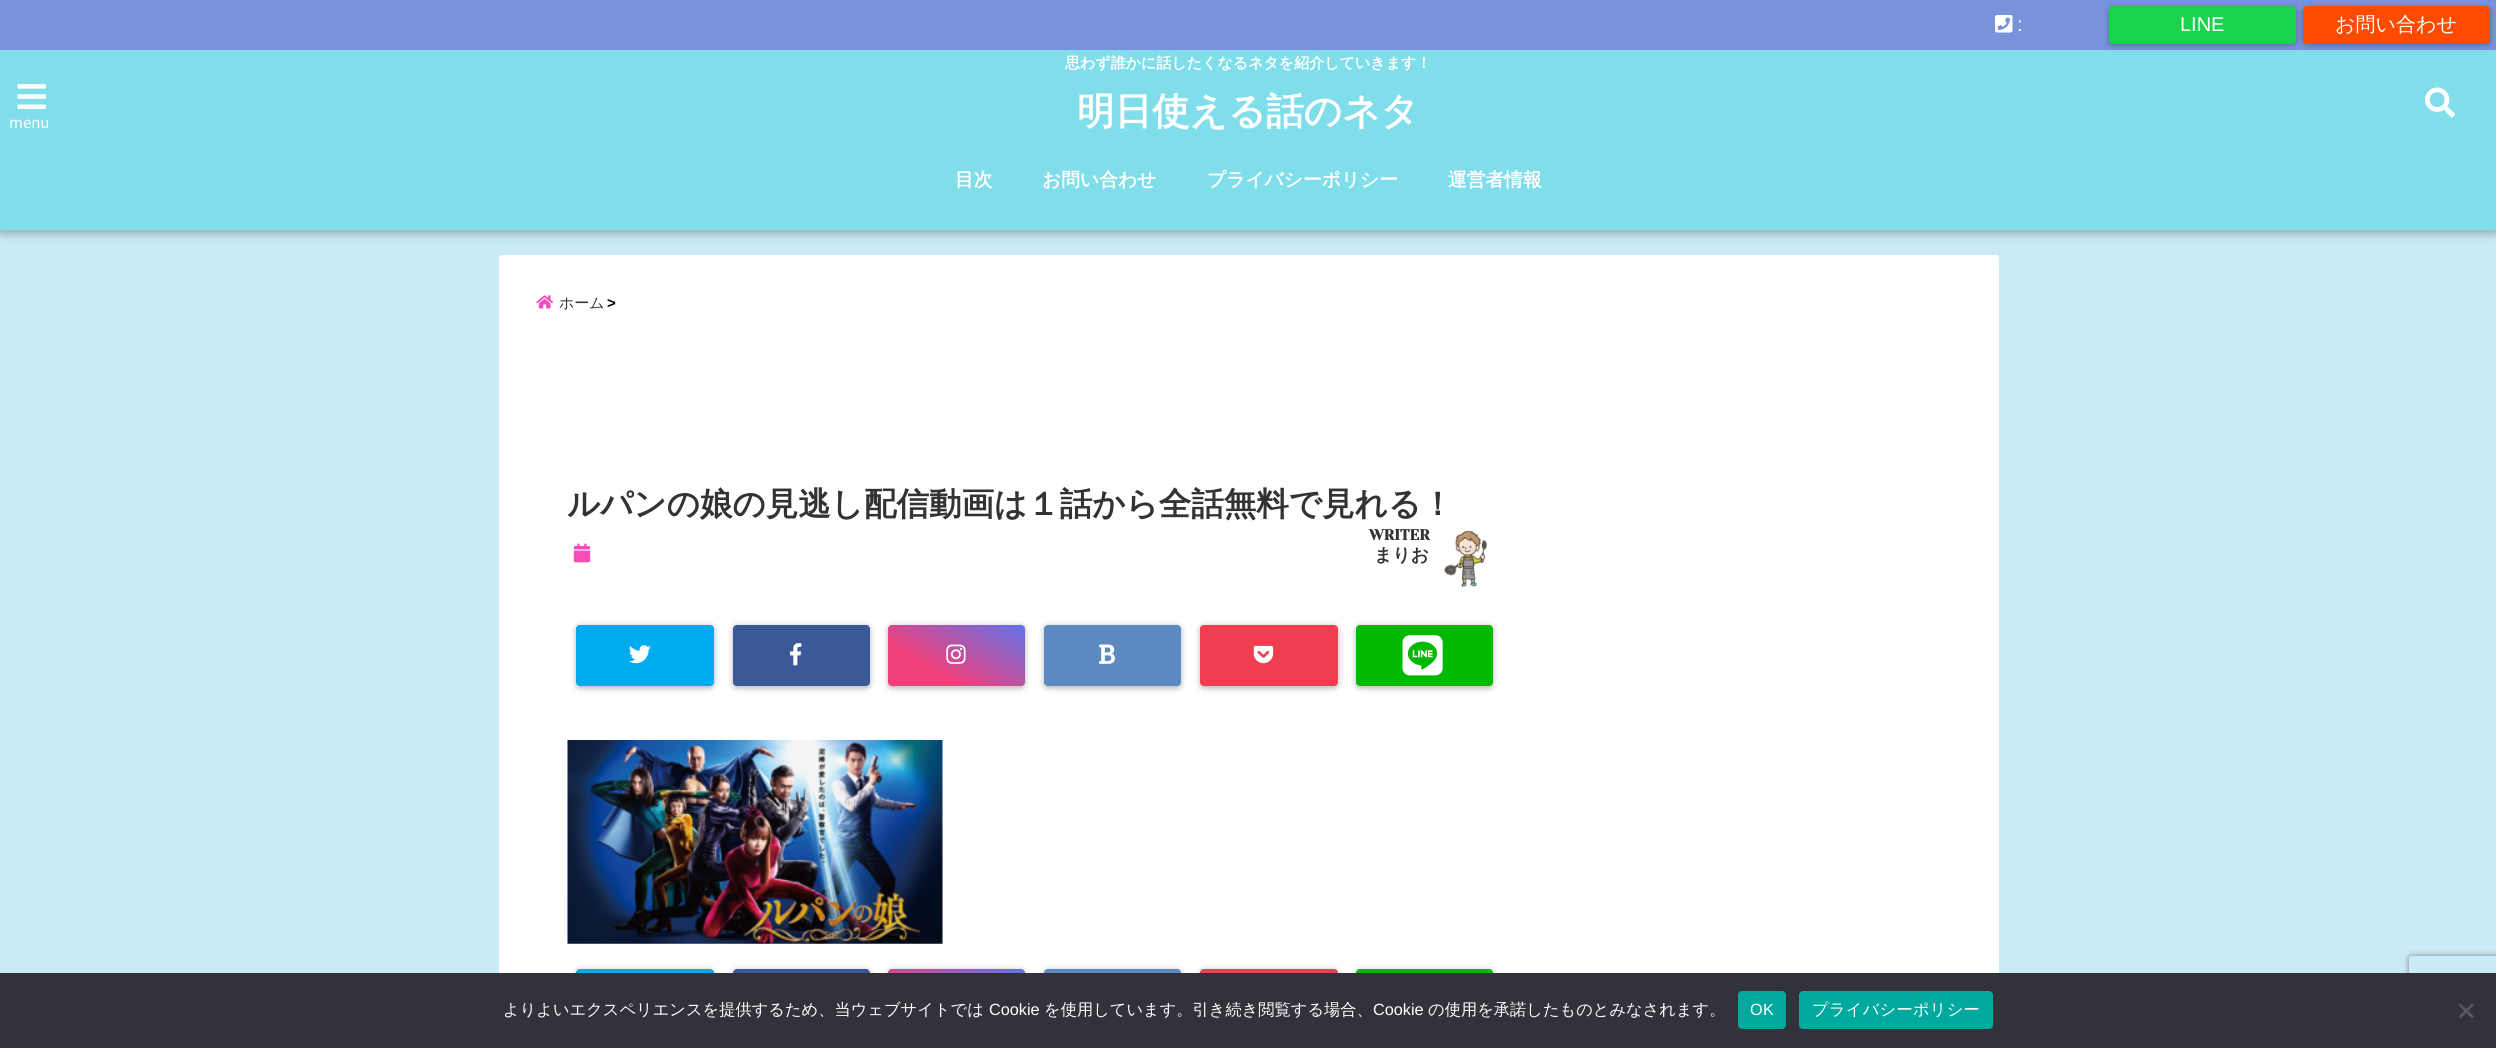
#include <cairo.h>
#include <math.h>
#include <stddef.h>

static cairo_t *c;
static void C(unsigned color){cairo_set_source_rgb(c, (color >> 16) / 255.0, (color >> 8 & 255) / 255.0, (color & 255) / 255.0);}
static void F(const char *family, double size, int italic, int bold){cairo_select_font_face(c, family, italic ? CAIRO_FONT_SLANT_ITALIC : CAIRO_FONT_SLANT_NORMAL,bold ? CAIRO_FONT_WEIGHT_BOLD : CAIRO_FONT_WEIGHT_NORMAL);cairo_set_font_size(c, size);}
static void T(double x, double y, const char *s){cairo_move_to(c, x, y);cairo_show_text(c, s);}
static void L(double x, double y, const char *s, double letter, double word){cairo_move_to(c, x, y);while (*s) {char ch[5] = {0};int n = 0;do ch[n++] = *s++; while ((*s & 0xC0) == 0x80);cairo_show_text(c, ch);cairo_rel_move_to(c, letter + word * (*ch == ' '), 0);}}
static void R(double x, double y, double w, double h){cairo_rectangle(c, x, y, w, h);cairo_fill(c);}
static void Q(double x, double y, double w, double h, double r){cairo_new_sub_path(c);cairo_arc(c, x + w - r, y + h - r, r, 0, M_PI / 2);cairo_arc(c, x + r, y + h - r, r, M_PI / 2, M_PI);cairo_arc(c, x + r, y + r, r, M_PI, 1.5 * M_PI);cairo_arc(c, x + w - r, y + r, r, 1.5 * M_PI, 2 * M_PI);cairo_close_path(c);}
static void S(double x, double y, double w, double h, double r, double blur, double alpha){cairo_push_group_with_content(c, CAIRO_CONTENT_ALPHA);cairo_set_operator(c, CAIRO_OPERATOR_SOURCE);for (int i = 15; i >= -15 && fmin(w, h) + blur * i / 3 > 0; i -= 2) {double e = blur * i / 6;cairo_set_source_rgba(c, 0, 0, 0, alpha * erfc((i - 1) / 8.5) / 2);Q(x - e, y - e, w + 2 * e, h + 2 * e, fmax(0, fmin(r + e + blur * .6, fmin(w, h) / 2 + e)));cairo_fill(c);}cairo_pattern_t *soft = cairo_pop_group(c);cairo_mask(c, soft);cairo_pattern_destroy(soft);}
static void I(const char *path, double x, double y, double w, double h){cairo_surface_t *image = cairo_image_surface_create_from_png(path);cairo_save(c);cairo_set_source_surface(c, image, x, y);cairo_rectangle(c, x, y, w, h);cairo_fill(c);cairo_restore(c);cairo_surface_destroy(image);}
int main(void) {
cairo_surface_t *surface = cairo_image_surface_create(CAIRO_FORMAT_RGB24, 2496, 1048);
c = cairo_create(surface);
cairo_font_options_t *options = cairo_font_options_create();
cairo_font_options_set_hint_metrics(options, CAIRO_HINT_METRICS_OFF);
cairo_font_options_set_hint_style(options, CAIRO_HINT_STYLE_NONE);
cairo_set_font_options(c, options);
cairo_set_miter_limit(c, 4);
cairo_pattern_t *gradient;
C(0xcaeaf7);
cairo_paint(c);
C(0x000000);
S(0,53,2496,180,0,5,.3);
C(0x7892db);
R(0,0,2496,50);
I("1.png",1995,15,18,18);
F("Liberation Sans",20,0,0);
C(0xffffff);
T(2017,31,":");
C(0x80deea);
R(0,50,2496,180);
C(0x000000);
S(2303,8,187,37,4,3,.3);
C(0xff4b00);
Q(2303,6,187,38,4);
cairo_fill(c);
C(0x000000);
S(2109,8,187,37,4,3,.3);
C(0x19d34c);
Q(2109,6,187,38,4);
cairo_fill(c);
C(0xffffff);
T(2180,31,"LINE");
F("WenQuanYi Zen Hei Medium",20,0,0);
T(2335,31,"お問い合わせ");
F("WenQuanYi Zen Hei",15,0,1);
T(1065,68,"思わず誰かに話したくなるネタを紹介していきます！");
I("2.png",17,84,29,25);
F("Noto Sans JP",15,0,0);
T(9,128,"menu");
F("WenQuanYi Zen Hei",37.5,0,1);
T(1077,124,"明日使える話のネタ");
I("3.png",2425,87,30,31);
F("WenQuanYi Zen Hei",18.75,0,1);
T(955,186,"目次");
T(1042,186,"お問い合わせ");
T(1207,186,"プライバシーポリシー");
T(1448,186,"運営者情報");
Q(499,255,1500,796,2.5);
cairo_fill(c);
I("4.png",536,295,17,14);
F("WenQuanYi Zen Hei Medium",15,0,0);
C(0x333333);
T(559,308,"ホーム");
F("Liberation Sans",15,0,1);
C(0x010101);
T(607,308,">");
F("WenQuanYi Zen Hei",32.5,0,1);
C(0x333333);
T(567,515,"ルパンの娘の見逃し配信動画は１話から全話無料で見れる！");
I("5.png",573,543,18,20);
F("Yeseva One",15,0,1);
T(1369,540,"WRITER");
I("6.png",1444,530,43,58);
F("WenQuanYi Zen Hei",18,0,1);
T(1374,561,"まりお");
C(0x000000);
S(576,626,138,62,4,3,.3);
C(0x00acee);
Q(576,625,138,61,4);
cairo_fill(c);
I("7.png",629,645,22,19);
C(0x000000);
S(733,626,137,62,4,3,.3);
C(0x3b5998);
Q(733,625,137,61,4);
cairo_fill(c);
I("8.png",790,643,12,23);
C(0x000000);
S(888,626,137,62,4,3,.3);
gradient = cairo_pattern_create_linear(926,708,995,588);
cairo_pattern_add_color_stop_rgba(gradient,.26,0.945,0.247,0.475,1);
cairo_pattern_add_color_stop_rgba(gradient,1,0.259,0.494,1,1);
cairo_set_source(c,gradient);
cairo_pattern_destroy(gradient);
Q(888,625,137,61,4);
cairo_fill(c);
I("9.png",946,644,20,20);
C(0x000000);
S(1044,626,137,62,4,3,.3);
C(0x5d8ac1);
Q(1044,625,137,61,4);
cairo_fill(c);
I("10.png",1099,644,16,20);
C(0x000000);
S(1200,626,138,62,4,3,.3);
C(0xf03e51);
Q(1200,625,138,61,4);
cairo_fill(c);
I("11.png",1253,645,21,19);
C(0x000000);
S(1356,626,137,62,4,3,.3);
C(0x01b900);
Q(1356,625,137,61,4);
cairo_fill(c);
I("12.png",1402,635,41,41);
I("13.png",567,740,376,204);
C(0x000000);
S(576,970,138,61,4,3,.3);
C(0x00acee);
Q(576,969,138,61,4);
cairo_fill(c);
C(0x000000);
S(733,970,137,61,4,3,.3);
C(0x3b5998);
Q(733,969,137,61,4);
cairo_fill(c);
C(0x000000);
S(888,970,137,61,4,3,.3);
gradient = cairo_pattern_create_linear(926,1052,995,932);
cairo_pattern_add_color_stop_rgba(gradient,.26,0.945,0.247,0.475,1);
cairo_pattern_add_color_stop_rgba(gradient,1,0.259,0.494,1,1);
cairo_set_source(c,gradient);
cairo_pattern_destroy(gradient);
Q(888,969,137,61,4);
cairo_fill(c);
C(0x000000);
S(1044,970,137,61,4,3,.3);
C(0x5d8ac1);
Q(1044,969,137,61,4);
cairo_fill(c);
C(0x000000);
S(1200,970,138,61,4,3,.3);
C(0xf03e51);
Q(1200,969,138,61,4);
cairo_fill(c);
C(0x000000);
S(1356,970,137,61,4,3,.3);
C(0x01b900);
Q(1356,969,137,61,4);
cairo_fill(c);
cairo_save(c);
cairo_set_fill_rule(c,CAIRO_FILL_RULE_EVEN_ODD);
cairo_new_path(c);
cairo_move_to(c,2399,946);
cairo_line_to(c,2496,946);
cairo_line_to(c,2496,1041);
cairo_line_to(c,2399,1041);
cairo_close_path(c);
cairo_move_to(c,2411.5,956);
cairo_line_to(c,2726.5,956);
cairo_curve_to(c,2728,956,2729,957,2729,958.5);
cairo_line_to(c,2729,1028.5);
cairo_curve_to(c,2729,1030,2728,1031,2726.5,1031);
cairo_line_to(c,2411.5,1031);
cairo_curve_to(c,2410,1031,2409,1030,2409,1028.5);
cairo_line_to(c,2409,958.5);
cairo_curve_to(c,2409,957,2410,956,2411.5,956);
cairo_close_path(c);
cairo_clip(c);
C(0x808080);
S(2409,956,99,75,2.5,3,1);
cairo_restore(c);
C(0x32323a);
R(0,973,2496,75);
F("WenQuanYi Zen Hei Medium",16.25,0,0);
C(0xffffff);
T(503,1015,"よりよいエクスペリエンスを提供するため、当ウェブサイトでは");
F("Liberation Sans",16.25,0,0);
T(989,1015,"Cookie");
F("WenQuanYi Zen Hei Medium",16.25,0,0);
T(1044,1015,"を使用しています。引き続き閲覧する場合、");
F("Liberation Sans",16.25,0,0);
T(1373,1015,"Cookie");
F("WenQuanYi Zen Hei Medium",16.25,0,0);
T(1428,1015,"の使用を承諾したものとみなされます。");
C(0x00a99d);
Q(1738,991,48,38,4);
cairo_fill(c);
F("Liberation Sans",16.25,0,0);
C(0xffffff);
L(1750,1015,"OK",.25,0);
C(0x00a99d);
Q(1799,991,194,38,4);
cairo_fill(c);
F("WenQuanYi Zen Hei Medium",16.25,0,0);
C(0xffffff);
L(1812,1015,"プライバシーポリシー",.25,0);
C(0x59595d);
cairo_new_path(c);
cairo_move_to(c,2472,1003.5);
cairo_line_to(c,2474,1005);
cairo_line_to(c,2460.5,1018.5);
cairo_line_to(c,2458.5,1016.5);
cairo_close_path(c);
cairo_fill(c);
cairo_new_path(c);
cairo_move_to(c,2458.5,1005);
cairo_line_to(c,2460.5,1003.5);
cairo_line_to(c,2474,1016.5);
cairo_line_to(c,2472,1018.5);
cairo_close_path(c);
cairo_fill(c);
cairo_surface_write_to_png(surface, "o.png");
cairo_font_options_destroy(options);
cairo_destroy(c);
cairo_surface_destroy(surface);
return 0;
}
